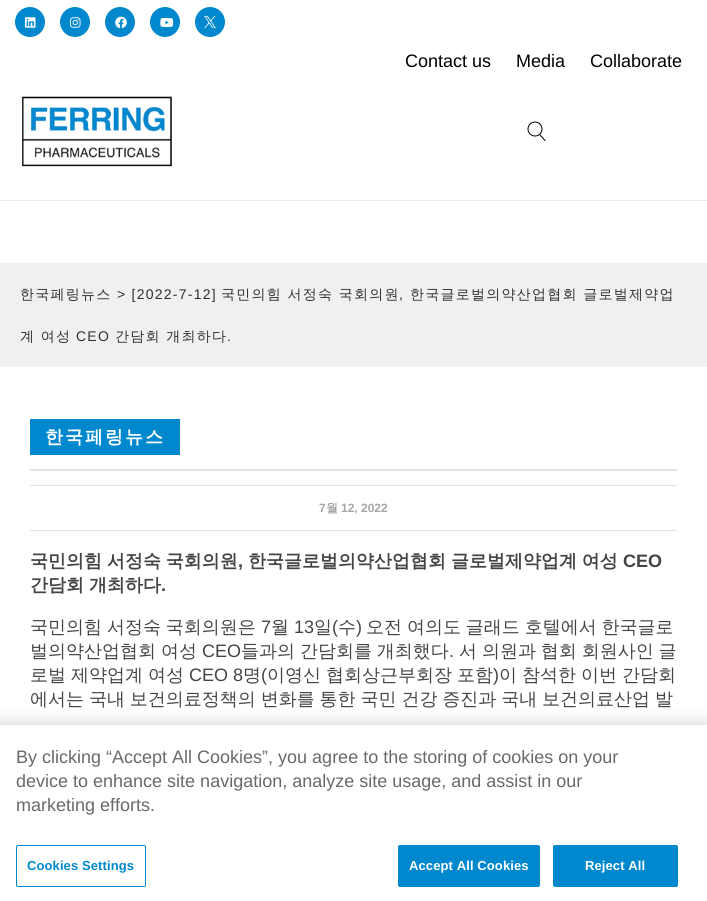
#include <cairo.h>
#include <math.h>
#include <stddef.h>

static cairo_t *c;
static void C(unsigned color){cairo_set_source_rgb(c, (color >> 16) / 255.0, (color >> 8 & 255) / 255.0, (color & 255) / 255.0);}
static void F(const char *family, double size, int italic, int bold){cairo_select_font_face(c, family, italic ? CAIRO_FONT_SLANT_ITALIC : CAIRO_FONT_SLANT_NORMAL,bold ? CAIRO_FONT_WEIGHT_BOLD : CAIRO_FONT_WEIGHT_NORMAL);cairo_set_font_size(c, size);}
static void T(double x, double y, const char *s){cairo_move_to(c, x, y);cairo_show_text(c, s);}
static void L(double x, double y, const char *s, double letter, double word){cairo_move_to(c, x, y);while (*s) {char ch[5] = {0};int n = 0;do ch[n++] = *s++; while ((*s & 0xC0) == 0x80);cairo_show_text(c, ch);cairo_rel_move_to(c, letter + word * (*ch == ' '), 0);}}
static void R(double x, double y, double w, double h){cairo_rectangle(c, x, y, w, h);cairo_fill(c);}
static void Q(double x, double y, double w, double h, double r){cairo_new_sub_path(c);cairo_arc(c, x + w - r, y + h - r, r, 0, M_PI / 2);cairo_arc(c, x + r, y + h - r, r, M_PI / 2, M_PI);cairo_arc(c, x + r, y + r, r, M_PI, 1.5 * M_PI);cairo_arc(c, x + w - r, y + r, r, 1.5 * M_PI, 2 * M_PI);cairo_close_path(c);}
static void S(double x, double y, double w, double h, double r, double blur, double alpha){cairo_push_group_with_content(c, CAIRO_CONTENT_ALPHA);cairo_set_operator(c, CAIRO_OPERATOR_SOURCE);for (int i = 15; i >= -15 && fmin(w, h) + blur * i / 3 > 0; i -= 2) {double e = blur * i / 6;cairo_set_source_rgba(c, 0, 0, 0, alpha * erfc((i - 1) / 8.5) / 2);Q(x - e, y - e, w + 2 * e, h + 2 * e, fmax(0, fmin(r + e + blur * .6, fmin(w, h) / 2 + e)));cairo_fill(c);}cairo_pattern_t *soft = cairo_pop_group(c);cairo_mask(c, soft);cairo_pattern_destroy(soft);}
static void I(const char *path, double x, double y, double w, double h){cairo_surface_t *image = cairo_image_surface_create_from_png(path);cairo_save(c);cairo_set_source_surface(c, image, x, y);cairo_rectangle(c, x, y, w, h);cairo_fill(c);cairo_restore(c);cairo_surface_destroy(image);}
int main(void) {
cairo_surface_t *surface = cairo_image_surface_create(CAIRO_FORMAT_RGB24, 707, 901);
c = cairo_create(surface);
cairo_font_options_t *options = cairo_font_options_create();
cairo_font_options_set_hint_metrics(options, CAIRO_HINT_METRICS_OFF);
cairo_font_options_set_hint_style(options, CAIRO_HINT_STYLE_NONE);
cairo_set_font_options(c, options);
cairo_set_miter_limit(c, 4);
C(0xffffff);
cairo_paint(c);
C(0x0088ce);
cairo_arc(c,30,22,15,0,2 * M_PI);
cairo_fill(c);
I("1.png",25,17,11,11);
cairo_arc(c,75,22,15,0,2 * M_PI);
cairo_fill(c);
I("2.png",70,17,11,11);
cairo_arc(c,120,22,15,0,2 * M_PI);
cairo_fill(c);
I("3.png",115,16,12,13);
cairo_arc(c,165,22,15,0,2 * M_PI);
cairo_fill(c);
I("4.png",160,18,14,9);
cairo_arc(c,210,22,15,0,2 * M_PI);
cairo_fill(c);
I("5.png",204,15,12,14);
F("Liberation Sans",18,0,0);
C(0x000000);
T(405,67,"Contact us");
T(516,67,"Media");
T(590,67,"Collaborate");
C(0xeaeaea);
R(0,200,707,1);
I("6.png",22,96,150,71);
cairo_arc(c,535,129,7,0,2 * M_PI);
C(0x000000);
cairo_set_line_width(c,1);
cairo_stroke(c);
cairo_new_path(c);
cairo_move_to(c,540,135);
cairo_line_to(c,545,140.5);
cairo_set_line_cap(c,CAIRO_LINE_CAP_SQUARE);
cairo_stroke(c);
C(0xf0f0f0);
R(0,263,707,104);
F("WenQuanYi Zen Hei Medium",14,0,0);
C(0x303030);
L(20,299,"한국페링뉴스",1.25,0);
F("Liberation Sans",14,0,0);
L(117,299,"> [2022-7-12]",1.25,0);
F("WenQuanYi Zen Hei Medium",14,0,0);
L(221,299,"국민의힘 서정숙 국회의원",1.25,0);
F("Liberation Sans",14,0,0);
L(399,299,",",1.25,0);
F("WenQuanYi Zen Hei Medium",14,0,0);
L(410,299,"한국글로벌의약산업협회 글로벌제약업",1.25,0);
L(20,341,"계 여성",1.25,0);
F("Liberation Sans",14,0,0);
L(76,341,"CEO",1.25,0);
F("WenQuanYi Zen Hei Medium",14,0,0);
L(115,341,"간담회 개최하다",1.25,0);
F("Liberation Sans",14,0,0);
L(227,341,".",1.25,0);
C(0x0088ce);
R(30,419,150,36);
F("WenQuanYi Zen Hei",18,0,1);
C(0xffffff);
L(45,443,"한국페링뉴스",2,0);
C(0xe3e3e3);
R(30,469,647,2);
R(30,485,647,1);
R(30,530,647,1);
F("Liberation Sans",12,0,1);
C(0xa5a5a5);
T(319,512,"7");
F("WenQuanYi Zen Hei",12,0,1);
T(326,512,"월");
F("Liberation Sans",12,0,1);
T(341,512,"12, 2022");
F("WenQuanYi Zen Hei",18,0,1);
C(0x444444);
L(30,567,"국민의힘 서정숙 국회의원",0,-.5);
F("Liberation Sans",18,0,1);
T(238,567,",");
F("WenQuanYi Zen Hei",18,0,1);
L(248,567,"한국글로벌의약산업협회 글로벌제약업계 여성",0,-.5);
F("Liberation Sans",18,0,1);
T(623,567,"CEO");
F("WenQuanYi Zen Hei",18,0,1);
L(30,591,"간담회 개최하다",0,-.5);
F("Liberation Sans",18,0,1);
T(161,591,".");
F("WenQuanYi Zen Hei Medium",18,0,0);
L(30,633,"국민의힘 서정숙 국회의원은",0,-.5);
F("Liberation Sans",18,0,0);
T(261,633,"7");
F("WenQuanYi Zen Hei Medium",18,0,0);
T(271,633,"월");
F("Liberation Sans",18,0,0);
T(294,633,"13");
F("WenQuanYi Zen Hei Medium",18,0,0);
T(314,633,"일");
F("Liberation Sans",18,0,0);
T(332,633,"(");
F("WenQuanYi Zen Hei Medium",18,0,0);
T(338,633,"수");
F("Liberation Sans",18,0,0);
T(356,633,")");
F("WenQuanYi Zen Hei Medium",18,0,0);
L(366,633,"오전 여의도 글래드 호텔에서 한국글로",0,-.5);
L(30,657,"벌의약산업협회 여성",0,-.5);
F("Liberation Sans",18,0,0);
T(202,657,"CEO");
F("WenQuanYi Zen Hei Medium",18,0,0);
L(241,657,"들과의 간담회를 개최했다",0,-.5);
F("Liberation Sans",18,0,0);
T(449,657,".");
F("WenQuanYi Zen Hei Medium",18,0,0);
L(459,657,"서 의원과 협회 회원사인 글",0,-.5);
T(30,681,"로벌");
T(71,681,"제약업계");
T(148,681,"여성");
F("Liberation Sans",18,0,0);
T(189,681,"CEO 8");
F("WenQuanYi Zen Hei Medium",18,0,0);
T(243,681,"명");
F("Liberation Sans",18,0,0);
T(261,681,"(");
F("WenQuanYi Zen Hei Medium",18,0,0);
T(267,681,"이영신");
T(326,681,"협회상근부회장");
T(457,681,"포함");
F("Liberation Sans",18,0,0);
T(493,681,")");
F("WenQuanYi Zen Hei Medium",18,0,0);
T(499,681,"이");
T(522,681,"참석한");
T(581,681,"이번");
T(622,681,"간담회");
L(30,705,"에서는 국내 보건의료정책의 변화를 통한 국민 건강 증진과 국내 보건의료산업 발",0,-.5);
C(0x000000);
S(0,725,707,176,0,9,.2);
C(0xffffff);
R(0,725,707,176);
F("Liberation Sans",18,0,0);
C(0x696969);
T(16,763,"By clicking “Accept All Cookies”, you agree to the storing of cookies on your");
T(16,787,"device to enhance site navigation, analyze site usage, and assist in our");
T(16,811,"marketing efforts.");
Q(16.5,845.5,129,41,1.5);
C(0x0088ce);
cairo_set_line_cap(c,CAIRO_LINE_CAP_BUTT);
cairo_stroke(c);
F("Liberation Sans",13,0,1);
L(27,870,"Cookies Settings",.1,0);
Q(398.5,845.5,141,41,1.5);
cairo_fill_preserve(c);
cairo_stroke(c);
C(0xffffff);
L(409,870,"Accept All Cookies",.1,0);
C(0x0088ce);
Q(553.5,845.5,124,41,1.5);
cairo_fill_preserve(c);
cairo_stroke(c);
C(0xffffff);
L(585,870,"Reject All",.1,0);
cairo_surface_write_to_png(surface, "o.png");
cairo_font_options_destroy(options);
cairo_destroy(c);
cairo_surface_destroy(surface);
return 0;
}
